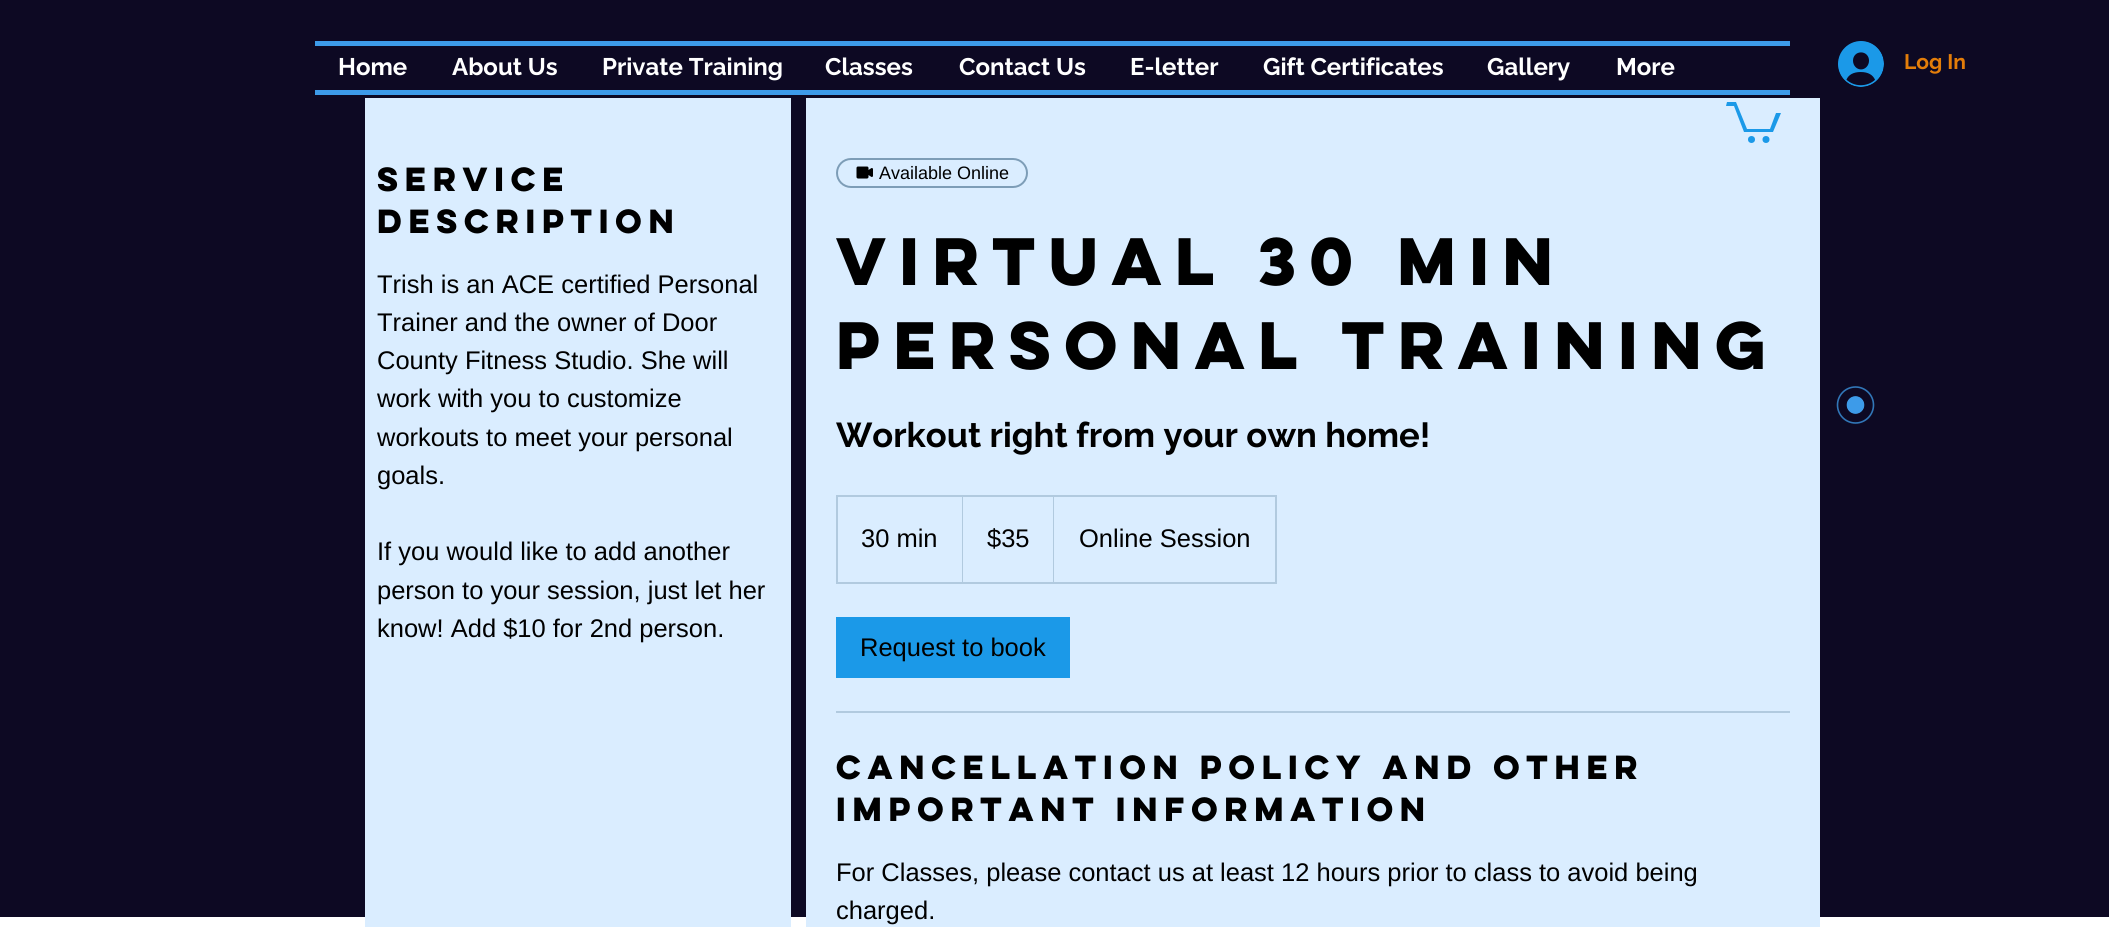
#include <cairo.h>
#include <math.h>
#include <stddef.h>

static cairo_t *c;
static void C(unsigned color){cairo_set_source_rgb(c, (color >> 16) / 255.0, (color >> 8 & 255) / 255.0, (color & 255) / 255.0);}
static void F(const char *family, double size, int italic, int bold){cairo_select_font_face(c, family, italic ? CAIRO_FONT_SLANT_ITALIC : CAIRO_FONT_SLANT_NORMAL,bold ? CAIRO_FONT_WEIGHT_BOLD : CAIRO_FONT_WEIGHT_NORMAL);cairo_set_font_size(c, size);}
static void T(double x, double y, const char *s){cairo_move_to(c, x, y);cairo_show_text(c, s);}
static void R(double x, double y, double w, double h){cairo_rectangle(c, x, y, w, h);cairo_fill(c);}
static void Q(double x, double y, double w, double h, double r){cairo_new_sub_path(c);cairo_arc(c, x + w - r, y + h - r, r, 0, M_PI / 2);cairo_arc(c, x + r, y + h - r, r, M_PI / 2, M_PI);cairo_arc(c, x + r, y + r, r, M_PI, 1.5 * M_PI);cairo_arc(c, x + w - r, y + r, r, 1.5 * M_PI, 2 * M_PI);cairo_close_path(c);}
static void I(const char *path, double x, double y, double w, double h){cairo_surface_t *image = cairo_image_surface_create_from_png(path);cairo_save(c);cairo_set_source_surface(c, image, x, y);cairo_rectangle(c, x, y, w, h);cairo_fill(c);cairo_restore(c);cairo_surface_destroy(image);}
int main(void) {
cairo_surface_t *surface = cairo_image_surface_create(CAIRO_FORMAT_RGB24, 2109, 927);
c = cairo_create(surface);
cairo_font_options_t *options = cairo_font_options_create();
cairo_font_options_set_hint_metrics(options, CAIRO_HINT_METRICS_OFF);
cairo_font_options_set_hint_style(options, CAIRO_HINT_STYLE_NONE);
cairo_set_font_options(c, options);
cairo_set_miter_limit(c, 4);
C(0xffffff);
cairo_paint(c);
C(0x0d0923);
R(0,0,2109,917);
C(0x3d9be9);
R(315,41,1475,5);
R(315,90,1475,5);
F("Raleway",24,0,1);
C(0xffffff);
T(338,75,"Home");
T(452,75,"About Us");
T(602,75,"Private Training");
T(825,75,"Classes");
T(959,75,"Contact Us");
T(1130,75,"E-letter");
T(1263,75,"Gift Certificates");
T(1487,75,"Gallery");
T(1616,75,"More");
I("1.png",1838,41,46,46);
F("Raleway",21,0,1);
C(0xe37d09);
T(1904,69,"Log In");
C(0xdaedff);
R(806,98,1014,829);
C(0x1b99e8);
cairo_new_path(c);
cairo_move_to(c,1781,113);
cairo_line_to(c,1773,132);
cairo_line_to(c,1744,132);
cairo_line_to(c,1734,106);
cairo_line_to(c,1726,106);
cairo_line_to(c,1727,102);
cairo_line_to(c,1736,102);
cairo_line_to(c,1747,129);
cairo_line_to(c,1770,129);
cairo_line_to(c,1776,113);
cairo_fill(c);
cairo_arc(c,1766,139.5,3.5,0,2 * M_PI);
cairo_fill(c);
cairo_arc(c,1751.5,139.5,3.5,0,2 * M_PI);
cairo_fill(c);
C(0xdaedff);
R(365,98,426,829);
F("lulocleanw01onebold",30,0,1);
C(0x000000);
T(377,191,"Service");
T(377,233,"Description");
F("Liberation Sans",25.5,0,0);
T(377,293,"Trish is an ACE certified Personal");
T(377,331,"Trainer and the owner of Door");
T(377,369,"County Fitness Studio. She will");
T(377,407,"work with you to customize");
T(377,446,"workouts to meet your personal");
T(377,484,"goals.");
T(377,560,"If you would like to add another");
T(377,599,"person to your session, just let her");
T(377,637,"know! Add $10 for 2nd person.");
Q(837,159,190,28,14);
C(0x7d9db7);
cairo_stroke(c);
I("2.png",856,166,17,13);
F("Liberation Sans",18,0,0);
C(0x000000);
T(879,179,"Available Online");
F("lulocleanw01onebold",60,0,1);
T(836,285,"Virtual 30 min");
T(836,369,"Personal Training");
F("Raleway",34.5,0,1);
T(836,447,"Workout right from your own home!");
cairo_rectangle(c,837,496,439,87);
C(0xb1cadf);
cairo_stroke(c);
F("Liberation Sans",25.5,0,0);
C(0x000000);
T(861,547,"30 min");
C(0xb1cadf);
cairo_new_path(c);
cairo_move_to(c,962,582);
cairo_line_to(c,962,495);
cairo_line_to(c,963,496);
cairo_line_to(c,963,582);
cairo_close_path(c);
cairo_fill(c);
C(0x000000);
T(987,547,"$35");
C(0xb1cadf);
cairo_new_path(c);
cairo_move_to(c,1053,582);
cairo_line_to(c,1053,495);
cairo_line_to(c,1054,496);
cairo_line_to(c,1054,582);
cairo_close_path(c);
cairo_fill(c);
C(0x000000);
T(1079,547,"Online Session");
C(0x1b99e8);
R(836,617,234,61);
C(0x000000);
T(860,656,"Request to book");
C(0xb1cadf);
R(836,711,954,2);
F("lulocleanw01onebold",30,0,1);
C(0x000000);
T(836,779,"Cancellation policy and other");
T(836,821,"IMPORTANT INFORMATION");
F("Liberation Sans",25.5,0,0);
T(836,881,"For Classes, please contact us at least 12 hours prior to class to avoid being");
T(836,919,"charged.");
cairo_new_path(c);
cairo_arc(c,1855.5,405,18,0,2 * M_PI);
C(0x3177b8);
cairo_set_line_width(c,1.6);
cairo_stroke(c);
cairo_arc(c,1855.5,405,8,0,2 * M_PI);
C(0x3d9be9);
cairo_stroke(c);
cairo_arc(c,1855.5,405,8,0,2 * M_PI);
cairo_fill_preserve(c);
cairo_set_line_width(c,.8);
cairo_stroke(c);
cairo_surface_write_to_png(surface, "o.png");
cairo_font_options_destroy(options);
cairo_destroy(c);
cairo_surface_destroy(surface);
return 0;
}
